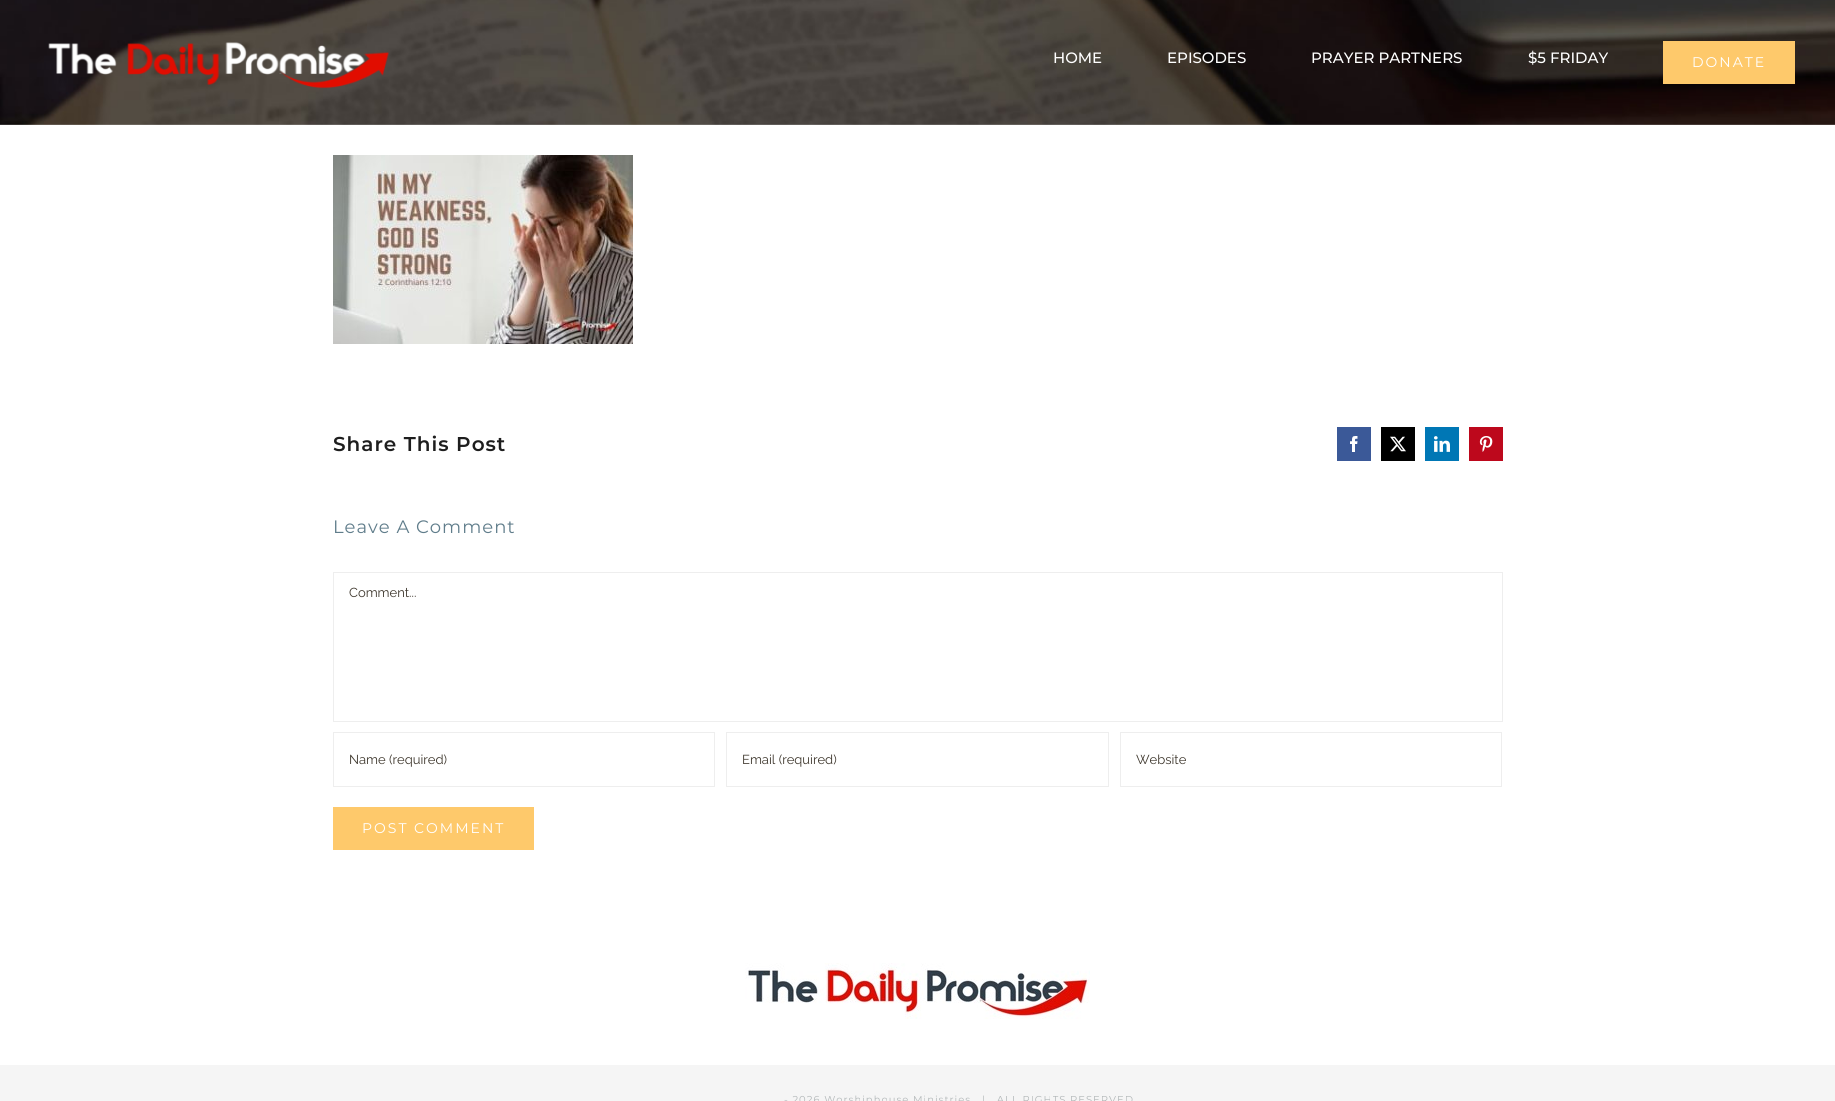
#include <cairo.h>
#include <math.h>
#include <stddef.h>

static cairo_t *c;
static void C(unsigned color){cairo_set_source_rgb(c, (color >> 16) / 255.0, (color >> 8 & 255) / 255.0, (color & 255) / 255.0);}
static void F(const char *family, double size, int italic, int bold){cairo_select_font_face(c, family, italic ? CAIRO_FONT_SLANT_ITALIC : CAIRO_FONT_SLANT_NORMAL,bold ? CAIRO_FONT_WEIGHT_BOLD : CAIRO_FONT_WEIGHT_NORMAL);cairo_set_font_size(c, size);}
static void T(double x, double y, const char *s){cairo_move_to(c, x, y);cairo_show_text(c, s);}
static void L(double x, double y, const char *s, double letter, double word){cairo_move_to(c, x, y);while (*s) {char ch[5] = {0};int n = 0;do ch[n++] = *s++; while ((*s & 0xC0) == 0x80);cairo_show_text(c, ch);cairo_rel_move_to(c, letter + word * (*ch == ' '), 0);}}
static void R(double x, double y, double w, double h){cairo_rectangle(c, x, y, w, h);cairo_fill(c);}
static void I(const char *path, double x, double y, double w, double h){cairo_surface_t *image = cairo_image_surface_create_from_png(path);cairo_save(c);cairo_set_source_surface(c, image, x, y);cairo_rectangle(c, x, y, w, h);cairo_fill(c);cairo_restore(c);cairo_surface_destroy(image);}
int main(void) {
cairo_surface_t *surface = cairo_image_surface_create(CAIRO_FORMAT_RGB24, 1835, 1101);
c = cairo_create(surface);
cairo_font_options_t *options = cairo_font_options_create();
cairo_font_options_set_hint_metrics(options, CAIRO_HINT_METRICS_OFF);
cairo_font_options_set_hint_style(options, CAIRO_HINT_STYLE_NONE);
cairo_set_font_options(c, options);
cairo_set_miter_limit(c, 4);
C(0xffffff);
cairo_paint(c);
I("1.png",0,0,1835,125);
I("2.png",48,42,341,47);
F("Montserrat Medium",15,0,0);
C(0xffffff);
T(1053,63,"HOME");
T(1167,63,"EPISODES");
T(1311,63,"PRAYER PARTNERS");
T(1528,63,"$5 FRIDAY");
C(0xfec96b);
R(1663,41,132,43);
F("Montserrat",14,0,0);
C(0xffffff);
L(1692,67,"DONATE",2,0);
I("3.png",333,155,300,189);
F("Montserrat SemiBold",20,0,0);
C(0x1e1e1e);
L(333,451,"Share This Post",1,0);
C(0x3b5998);
R(1337,427,34,34);
I("4.png",1350,436,8,16);
C(0x000000);
R(1381,427,34,34);
I("5.png",1390,436,16,16);
C(0x0077b5);
R(1425,427,34,34);
I("6.png",1434,436,16,16);
C(0xbd081c);
R(1469,427,34,34);
I("7.png",1479,436,14,16);
F("Montserrat",18,0,0);
C(0x607d8b);
L(333,533,"Leave A Comment",1,0);
cairo_rectangle(c,333.5,572.5,1169,149);
C(0xeeeeee);
cairo_set_line_width(c,1);
cairo_stroke(c);
F("Raleway",13,0,0);
C(0x3e372d);
T(349,597,"Comment...");
cairo_rectangle(c,333.5,732.5,381,54);
C(0xeeeeee);
cairo_stroke(c);
C(0x3e372d);
T(349,764,"Name (required)");
cairo_rectangle(c,726.5,732.5,382,54);
C(0xeeeeee);
cairo_stroke(c);
C(0x3e372d);
T(742,764,"Email (required)");
cairo_rectangle(c,1120.5,732.5,381,54);
C(0xeeeeee);
cairo_stroke(c);
C(0x3e372d);
T(1136,764,"Website");
C(0xfec96b);
R(333,807,201,43);
F("Montserrat",14,0,0);
C(0xffffff);
L(362,833,"POST COMMENT",2,0);
I("8.png",745,963,345,56);
C(0xf5f5f5);
R(0,1065,1835,36);
F("Montserrat",10,0,0);
C(0xb2b7b8);
L(784,1103,"- 2026 Worshiphouse Ministries   |   ALL RIGHTS RESERVED",1,0);
cairo_surface_write_to_png(surface, "o.png");
cairo_font_options_destroy(options);
cairo_destroy(c);
cairo_surface_destroy(surface);
return 0;
}
